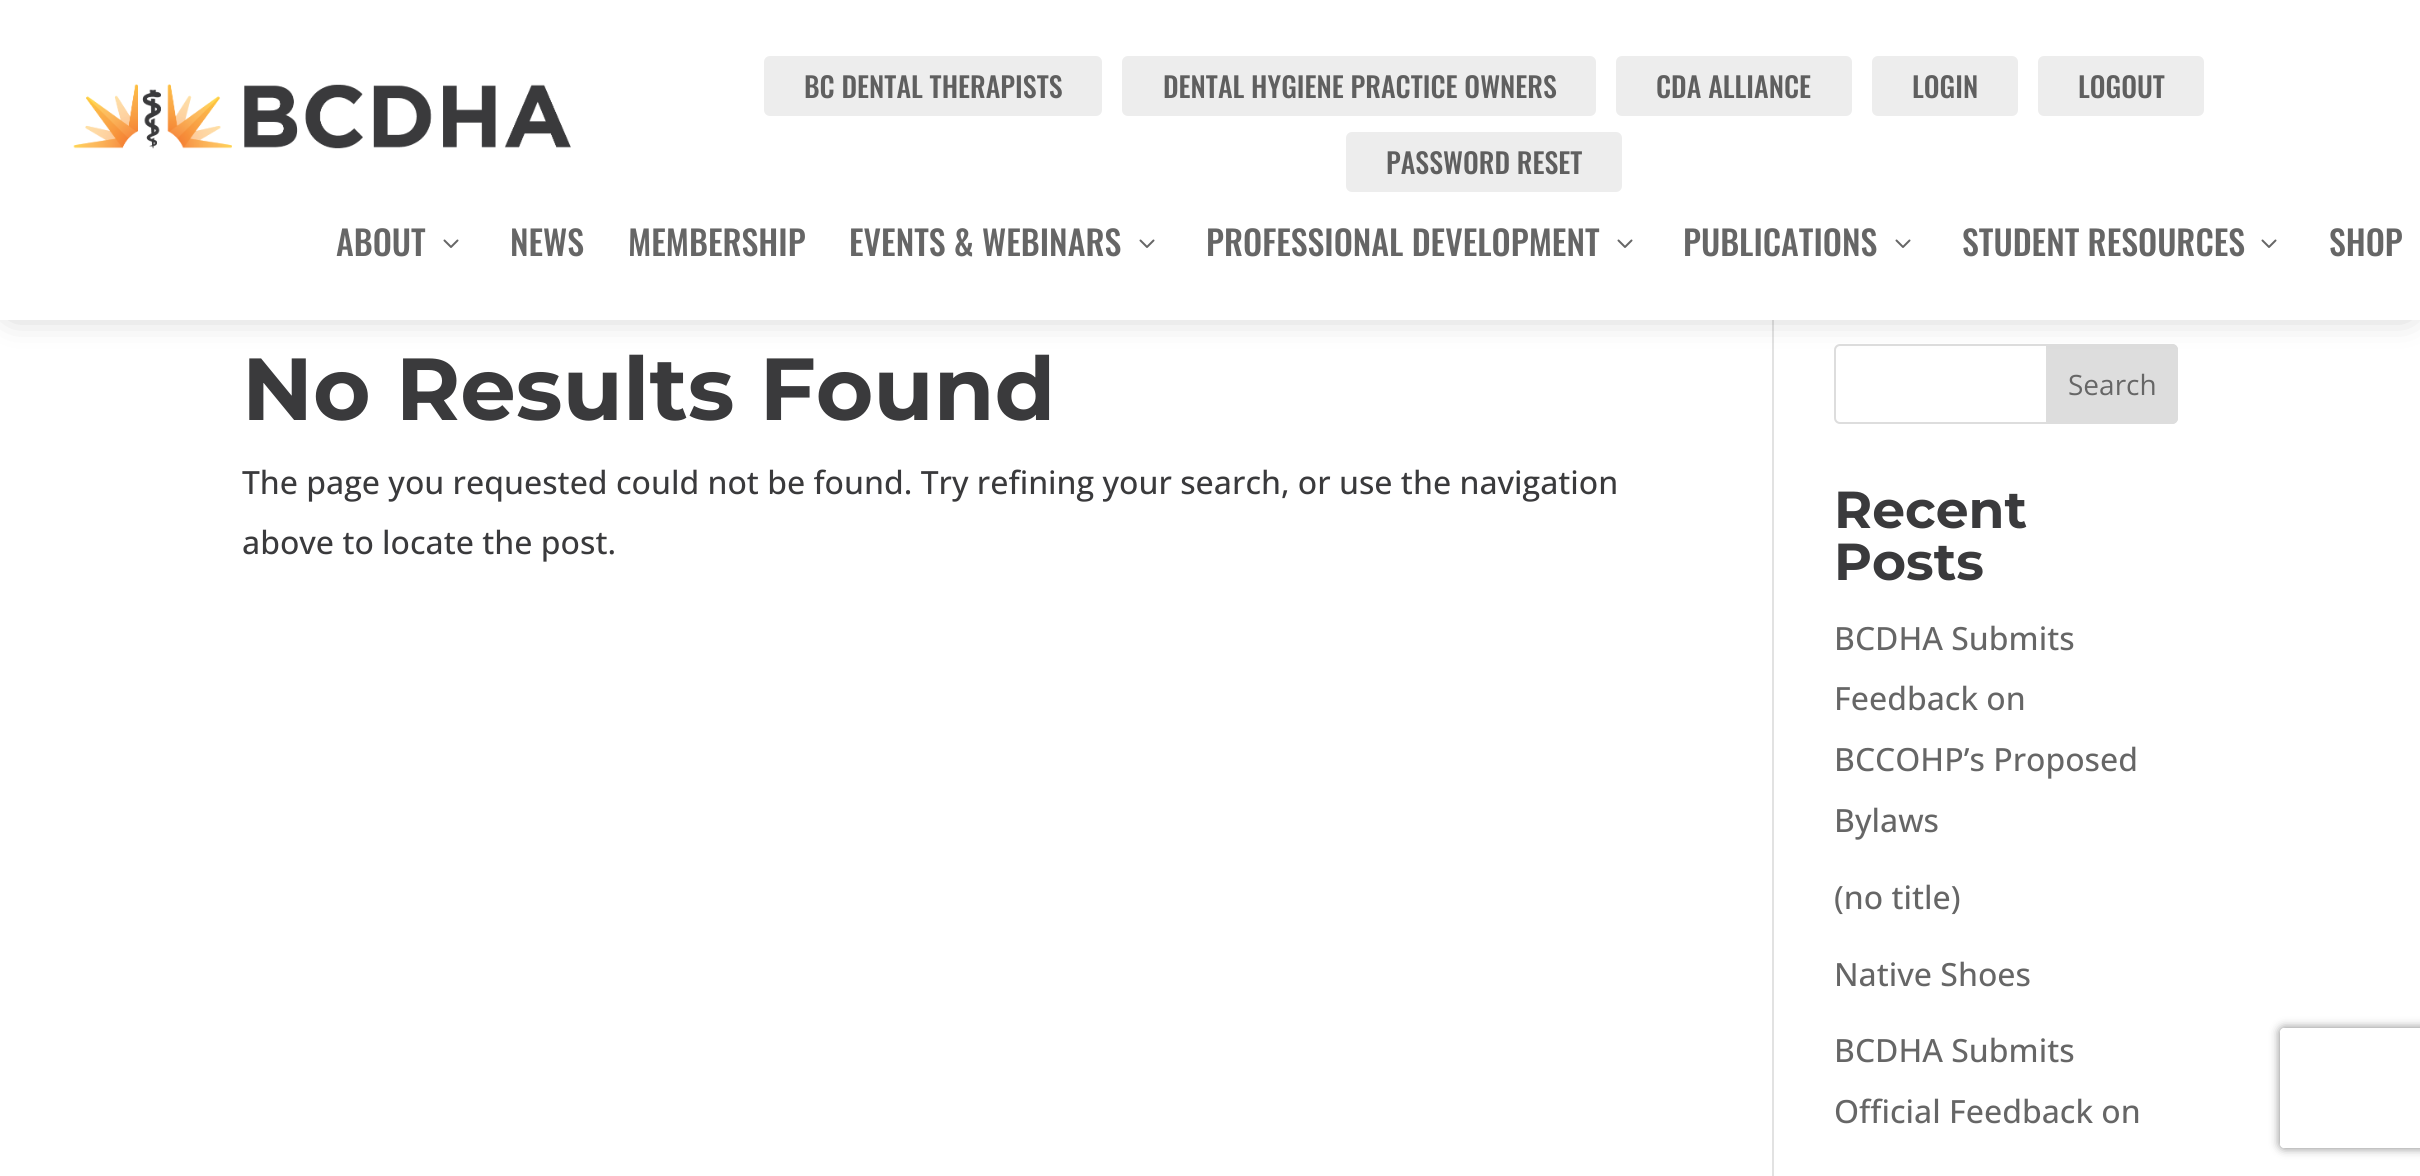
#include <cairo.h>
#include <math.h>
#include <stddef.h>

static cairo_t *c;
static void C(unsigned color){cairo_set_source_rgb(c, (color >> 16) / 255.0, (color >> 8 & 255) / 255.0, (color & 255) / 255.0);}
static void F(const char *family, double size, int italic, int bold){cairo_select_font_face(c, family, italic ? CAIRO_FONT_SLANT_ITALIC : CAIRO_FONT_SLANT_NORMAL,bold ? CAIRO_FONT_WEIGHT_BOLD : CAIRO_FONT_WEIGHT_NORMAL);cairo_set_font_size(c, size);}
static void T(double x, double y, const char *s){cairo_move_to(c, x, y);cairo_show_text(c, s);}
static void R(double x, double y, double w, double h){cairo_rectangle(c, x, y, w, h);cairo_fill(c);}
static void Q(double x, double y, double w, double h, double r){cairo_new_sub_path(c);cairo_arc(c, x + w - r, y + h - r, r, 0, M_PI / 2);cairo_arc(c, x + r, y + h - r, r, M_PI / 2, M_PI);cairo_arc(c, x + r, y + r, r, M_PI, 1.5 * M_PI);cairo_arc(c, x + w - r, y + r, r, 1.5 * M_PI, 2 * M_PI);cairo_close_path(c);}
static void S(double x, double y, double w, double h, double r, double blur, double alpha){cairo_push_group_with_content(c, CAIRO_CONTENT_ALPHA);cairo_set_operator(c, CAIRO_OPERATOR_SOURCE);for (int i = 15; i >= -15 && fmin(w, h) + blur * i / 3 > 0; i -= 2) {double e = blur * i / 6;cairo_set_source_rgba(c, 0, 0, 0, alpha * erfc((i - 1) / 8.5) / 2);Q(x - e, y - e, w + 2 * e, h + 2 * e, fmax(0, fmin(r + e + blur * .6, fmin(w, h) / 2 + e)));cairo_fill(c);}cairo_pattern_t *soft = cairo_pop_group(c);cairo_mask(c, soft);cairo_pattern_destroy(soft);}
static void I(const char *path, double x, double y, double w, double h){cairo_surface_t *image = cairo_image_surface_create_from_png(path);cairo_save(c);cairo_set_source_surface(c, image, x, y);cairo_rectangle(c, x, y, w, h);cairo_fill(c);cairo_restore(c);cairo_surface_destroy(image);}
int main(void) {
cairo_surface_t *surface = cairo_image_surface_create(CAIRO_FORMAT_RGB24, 2420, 1176);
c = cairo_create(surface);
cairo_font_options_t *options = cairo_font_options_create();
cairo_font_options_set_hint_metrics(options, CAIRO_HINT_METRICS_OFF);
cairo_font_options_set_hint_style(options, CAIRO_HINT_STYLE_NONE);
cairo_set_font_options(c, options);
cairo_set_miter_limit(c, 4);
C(0xffffff);
cairo_paint(c);
C(0xe2e2e2);
R(1772,320,2,856);
Q(1835,345,342,78,5);
C(0xdddddd);
cairo_stroke(c);
cairo_new_path(c);
cairo_move_to(c,2047,345);
cairo_line_to(c,2172,345);
cairo_curve_to(c,2175,345,2177,347,2177,350);
cairo_line_to(c,2177,418);
cairo_curve_to(c,2177,421,2175,423,2172,423);
cairo_line_to(c,2047,423);
cairo_close_path(c);
cairo_fill_preserve(c);
cairo_stroke(c);
C(0x000000);
S(12,14,2396,296,0,18,.3);
C(0xffffff);
R(0,0,2420,320);
I("1.png",73,84,498,65);
C(0xededed);
Q(764,56,338,60,6);
cairo_fill(c);
F("Oswald Medium",28,0,0);
C(0x5f5f5f);
T(804,98,"BC DENTAL THERAPISTS");
C(0xededed);
Q(1122,56,474,60,6);
cairo_fill(c);
C(0x5f5f5f);
T(1163,98,"DENTAL HYGIENE PRACTICE OWNERS");
C(0xededed);
Q(1616,56,236,60,6);
cairo_fill(c);
C(0x5f5f5f);
T(1656,98,"CDA ALLIANCE");
C(0xededed);
Q(1872,56,146,60,6);
cairo_fill(c);
C(0x5f5f5f);
T(1912,98,"LOGIN");
C(0xededed);
Q(2038,56,166,60,6);
cairo_fill(c);
C(0x5f5f5f);
T(2078,98,"LOGOUT");
C(0xededed);
Q(1346,132,276,60,6);
cairo_fill(c);
C(0x5f5f5f);
T(1386,174,"PASSWORD RESET");
F("Oswald Medium",34,0,0);
C(0x666666);
T(336,256,"ABOUT");
I("2.png",443,239,16,9);
T(510,256,"NEWS");
T(628,256,"MEMBERSHIP");
T(849,256,"EVENTS & WEBINARS");
I("2.png",1139,239,16,9);
T(1206,256,"PROFESSIONAL DEVELOPMENT");
I("2.png",1617,239,16,9);
T(1683,256,"PUBLICATIONS");
I("2.png",1895,239,16,9);
T(1962,256,"STUDENT RESOURCES");
I("2.png",2261,239,16,9);
T(2329,256,"SHOP");
F("Montserrat Thin",88,0,0);
C(0x3a3a3c);
T(242,420,"No Results Found");
F("Open Sans Medium",32,0,0);
T(242,494,"The page you requested could not be found. Try refining your search, or use the navigation");
T(242,554,"above to locate the post.");
F("Open Sans",28,0,0);
C(0x666666);
T(2068,395,"Search");
F("Montserrat Thin",52,0,0);
C(0x3a3a3c);
T(1834,528,"Recent");
T(1834,580,"Posts");
F("Open Sans Medium",32,0,0);
C(0x666666);
T(1834,650,"BCDHA Submits");
T(1834,710,"Feedback on");
T(1834,771,"BCCOHP’s Proposed");
T(1834,832,"Bylaws");
T(1834,909,"(no title)");
T(1834,986,"Native Shoes");
T(1834,1062,"BCDHA Submits");
T(1834,1123,"Official Feedback on");
cairo_save(c);
cairo_set_fill_rule(c,CAIRO_FILL_RULE_EVEN_ODD);
cairo_new_path(c);
cairo_move_to(c,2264,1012);
cairo_line_to(c,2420,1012);
cairo_line_to(c,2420,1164);
cairo_line_to(c,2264,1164);
cairo_close_path(c);
cairo_move_to(c,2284,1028);
cairo_line_to(c,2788,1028);
cairo_curve_to(c,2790,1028,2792,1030,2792,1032);
cairo_line_to(c,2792,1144);
cairo_curve_to(c,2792,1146,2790,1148,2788,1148);
cairo_line_to(c,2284,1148);
cairo_curve_to(c,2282,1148,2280,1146,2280,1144);
cairo_line_to(c,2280,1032);
cairo_curve_to(c,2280,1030,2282,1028,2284,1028);
cairo_close_path(c);
cairo_clip(c);
C(0x808080);
S(2280,1028,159,120,4,5,1);
cairo_restore(c);
cairo_surface_write_to_png(surface, "o.png");
cairo_font_options_destroy(options);
cairo_destroy(c);
cairo_surface_destroy(surface);
return 0;
}
